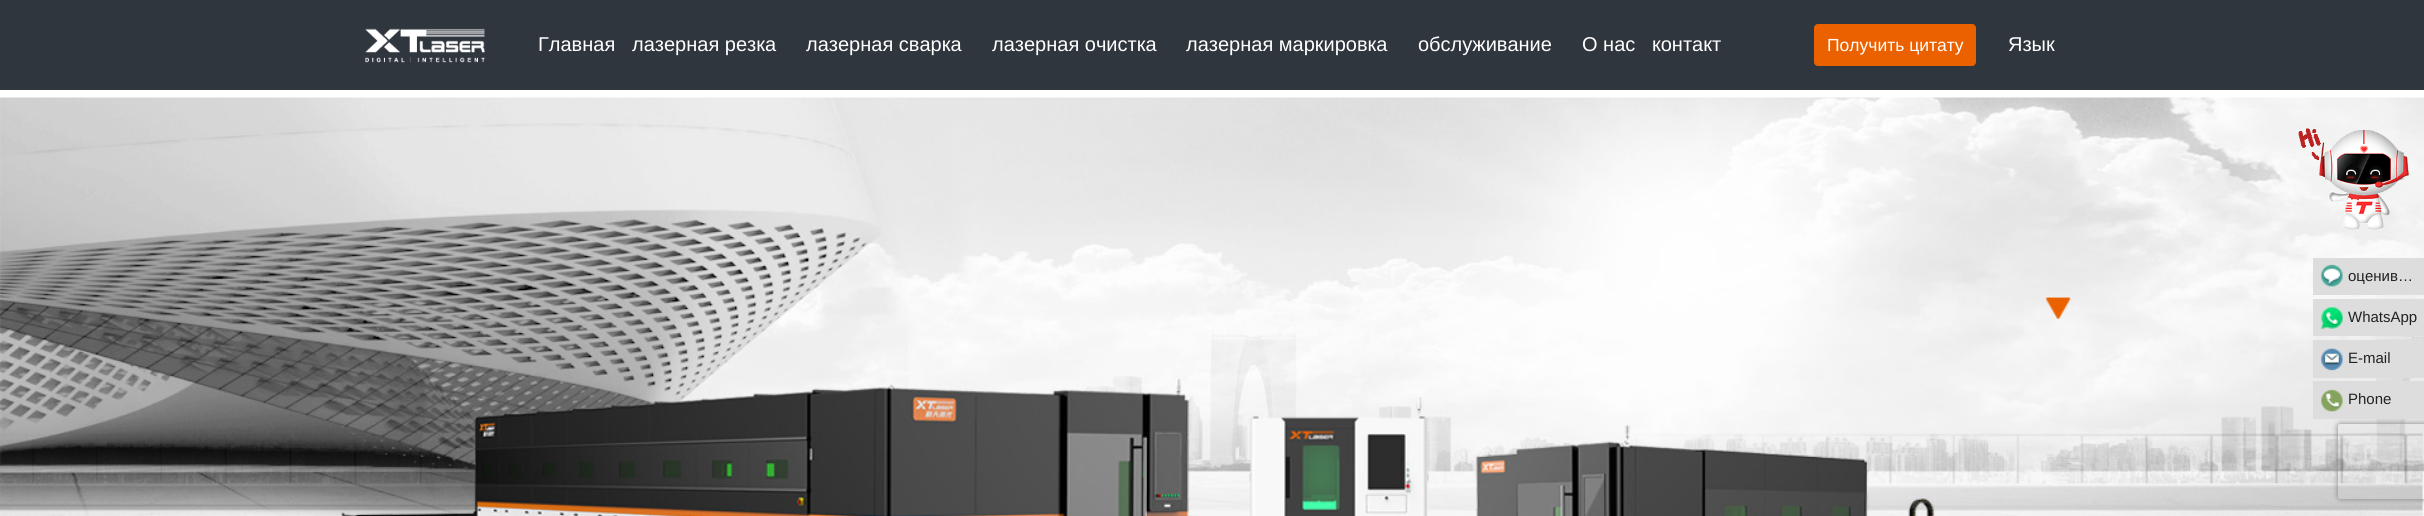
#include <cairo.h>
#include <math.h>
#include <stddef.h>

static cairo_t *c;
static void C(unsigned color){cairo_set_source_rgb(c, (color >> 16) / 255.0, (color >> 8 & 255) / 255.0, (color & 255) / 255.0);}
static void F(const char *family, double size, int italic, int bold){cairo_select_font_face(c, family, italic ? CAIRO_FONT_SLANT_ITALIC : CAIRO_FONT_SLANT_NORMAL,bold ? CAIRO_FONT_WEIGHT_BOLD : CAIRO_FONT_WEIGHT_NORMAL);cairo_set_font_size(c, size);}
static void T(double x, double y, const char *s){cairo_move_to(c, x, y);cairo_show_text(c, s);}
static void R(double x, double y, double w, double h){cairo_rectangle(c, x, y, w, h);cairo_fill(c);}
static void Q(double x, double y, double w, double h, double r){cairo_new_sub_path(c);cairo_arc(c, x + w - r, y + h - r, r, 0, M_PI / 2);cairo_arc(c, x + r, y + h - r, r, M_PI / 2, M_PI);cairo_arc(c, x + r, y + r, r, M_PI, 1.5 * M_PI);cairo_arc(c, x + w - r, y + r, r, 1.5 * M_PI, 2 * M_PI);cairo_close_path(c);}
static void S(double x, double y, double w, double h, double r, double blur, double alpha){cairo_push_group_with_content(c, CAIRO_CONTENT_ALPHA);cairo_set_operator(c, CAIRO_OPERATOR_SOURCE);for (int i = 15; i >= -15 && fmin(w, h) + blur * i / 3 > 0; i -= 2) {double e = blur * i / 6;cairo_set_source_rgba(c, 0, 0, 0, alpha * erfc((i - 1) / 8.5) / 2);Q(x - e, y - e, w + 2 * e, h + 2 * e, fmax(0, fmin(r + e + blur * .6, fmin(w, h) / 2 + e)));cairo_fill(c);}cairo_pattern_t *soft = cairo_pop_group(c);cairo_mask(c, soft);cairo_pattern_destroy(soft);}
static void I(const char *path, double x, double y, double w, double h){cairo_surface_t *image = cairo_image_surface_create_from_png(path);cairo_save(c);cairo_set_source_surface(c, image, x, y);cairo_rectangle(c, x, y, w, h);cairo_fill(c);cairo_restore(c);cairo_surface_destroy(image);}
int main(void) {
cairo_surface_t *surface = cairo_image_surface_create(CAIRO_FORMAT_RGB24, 2424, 516);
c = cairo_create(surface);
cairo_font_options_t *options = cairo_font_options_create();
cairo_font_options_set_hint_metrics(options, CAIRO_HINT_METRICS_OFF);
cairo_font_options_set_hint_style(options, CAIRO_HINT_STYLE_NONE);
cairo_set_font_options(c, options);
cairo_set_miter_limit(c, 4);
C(0xffffff);
cairo_paint(c);
C(0x2f363d);
R(0,0,2424,90);
I("1.png",365,28,120,35);
F("Liberation Sans",20,0,0);
C(0xffffff);
T(538,51,"Главная");
T(632,51,"лазерная резка");
T(806,51,"лазерная сварка");
T(992,51,"лазерная очистка");
T(1186,51,"лазерная маркировка");
T(1418,51,"обслуживание");
T(1582,51,"О нас");
T(1652,51,"контакт");
C(0xeb6100);
Q(1814,24,162,42,4);
cairo_fill(c);
F("Liberation Sans",17.5,0,0);
C(0xffffff);
T(1827,51,"Получить цитату");
F("Liberation Sans",20,0,0);
T(2008,51,"Язык");
I("2.png",0,97,2424,419);
I("3.png",2046,297,25,22);
I("4.png",2298,128,111,102);
C(0xdddddd);
R(2313,258,111,37);
I("5.png",2321,264,22,23);
F("Liberation Sans",15,0,0);
C(0x222222);
T(2348,281,"оценив…");
C(0xdddddd);
R(2313,299,111,37);
I("6.png",2321,307,22,22);
C(0x222222);
T(2348,322,"WhatsApp");
C(0xdddddd);
R(2313,340,111,38);
I("7.png",2321,348,22,23);
C(0x222222);
T(2348,363,"E-mail");
cairo_save(c);
cairo_set_fill_rule(c,CAIRO_FILL_RULE_EVEN_ODD);
cairo_new_path(c);
cairo_move_to(c,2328,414);
cairo_line_to(c,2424,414);
cairo_line_to(c,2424,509);
cairo_line_to(c,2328,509);
cairo_close_path(c);
cairo_move_to(c,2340.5,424);
cairo_line_to(c,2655.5,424);
cairo_curve_to(c,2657,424,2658,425,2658,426.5);
cairo_line_to(c,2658,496.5);
cairo_curve_to(c,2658,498,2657,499,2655.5,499);
cairo_line_to(c,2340.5,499);
cairo_curve_to(c,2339,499,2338,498,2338,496.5);
cairo_line_to(c,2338,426.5);
cairo_curve_to(c,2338,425,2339,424,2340.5,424);
cairo_close_path(c);
cairo_clip(c);
C(0x808080);
S(2338,424,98,75,2.5,3,1);
cairo_restore(c);
C(0xdddddd);
R(2313,381,111,38);
I("8.png",2321,389,22,23);
C(0x222222);
T(2348,404,"Phone");
cairo_surface_write_to_png(surface, "o.png");
cairo_font_options_destroy(options);
cairo_destroy(c);
cairo_surface_destroy(surface);
return 0;
}
